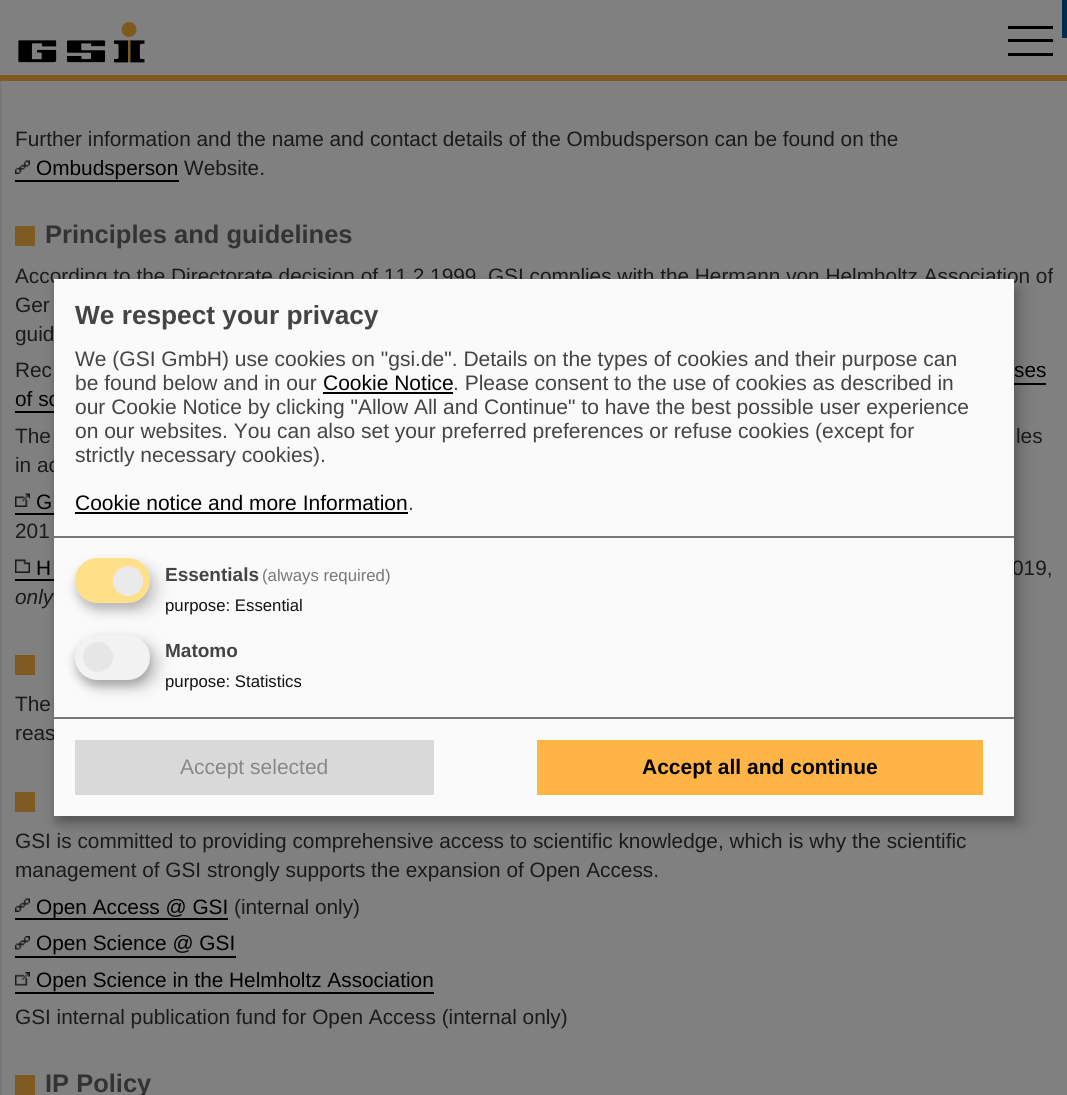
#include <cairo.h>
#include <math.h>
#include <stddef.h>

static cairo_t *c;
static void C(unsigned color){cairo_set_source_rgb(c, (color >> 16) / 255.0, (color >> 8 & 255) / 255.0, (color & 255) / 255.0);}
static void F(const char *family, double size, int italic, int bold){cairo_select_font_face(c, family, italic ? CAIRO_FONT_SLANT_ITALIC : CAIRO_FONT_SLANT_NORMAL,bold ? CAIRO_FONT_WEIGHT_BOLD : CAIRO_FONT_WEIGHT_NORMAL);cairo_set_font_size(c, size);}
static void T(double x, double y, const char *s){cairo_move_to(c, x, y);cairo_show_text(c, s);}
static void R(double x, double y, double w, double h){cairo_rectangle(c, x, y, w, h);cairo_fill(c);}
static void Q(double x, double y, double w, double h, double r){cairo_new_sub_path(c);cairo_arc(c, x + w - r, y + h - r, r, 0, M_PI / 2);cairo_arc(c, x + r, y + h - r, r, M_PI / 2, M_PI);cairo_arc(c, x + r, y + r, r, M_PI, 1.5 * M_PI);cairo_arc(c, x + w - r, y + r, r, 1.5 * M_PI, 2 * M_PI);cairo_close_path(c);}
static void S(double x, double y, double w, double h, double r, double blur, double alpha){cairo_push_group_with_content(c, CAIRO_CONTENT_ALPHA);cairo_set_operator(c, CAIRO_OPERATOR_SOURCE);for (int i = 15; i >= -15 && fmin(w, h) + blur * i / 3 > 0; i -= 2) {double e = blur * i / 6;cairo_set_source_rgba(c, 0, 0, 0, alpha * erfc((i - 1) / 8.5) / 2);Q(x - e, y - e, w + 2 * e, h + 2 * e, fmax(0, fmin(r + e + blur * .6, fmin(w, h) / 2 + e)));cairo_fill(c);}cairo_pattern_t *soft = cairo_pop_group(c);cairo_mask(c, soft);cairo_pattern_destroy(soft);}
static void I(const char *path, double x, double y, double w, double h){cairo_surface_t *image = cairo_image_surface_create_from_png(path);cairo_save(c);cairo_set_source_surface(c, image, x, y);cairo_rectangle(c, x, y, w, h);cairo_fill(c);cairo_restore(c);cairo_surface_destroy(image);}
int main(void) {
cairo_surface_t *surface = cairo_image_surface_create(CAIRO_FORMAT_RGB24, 1067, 1095);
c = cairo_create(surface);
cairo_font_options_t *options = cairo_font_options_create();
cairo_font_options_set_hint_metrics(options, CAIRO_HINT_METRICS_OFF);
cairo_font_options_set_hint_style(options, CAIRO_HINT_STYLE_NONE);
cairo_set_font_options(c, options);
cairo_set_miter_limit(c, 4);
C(0x808080);
cairo_paint(c);
C(0x805a23);
R(0,75,1067,6);
I("1.png",18,22,127,41);
C(0x000000);
R(1008,26,45,3);
R(1008,53,45,3);
R(1008,39,45,3);
C(0x002d4e);
R(1062,0,5,38);
I("2.png",0,81,2,1014);
F("Liberation Sans",20.8,0,0);
C(0x1a1a1a);
T(15,146,"Further information and the name and contact details of the Ombudsperson can be found on the");
I("3.png",15,160,15,14);
C(0x000000);
T(36,175,"Ombudsperson");
R(15,180,164,2);
C(0x1a1a1a);
T(184,175,"Website.");
C(0x805a23);
R(15,226,20,20);
F("Liberation Sans",25.5,0,1);
C(0x333333);
T(45,243,"Principles and guidelines");
F("Liberation Sans",20.8,0,0);
C(0x1a1a1a);
T(15,283,"According to the Directorate decision of 11.2.1999, GSI complies with the Hermann von Helmholtz Association of");
T(15,312,"Ger");
T(15,341,"guid");
T(15,377,"Rec");
C(0x000000);
T(1014,377,"ses");
R(1014,383,32,2);
T(15,406,"of sc");
R(15,411,39,2);
C(0x1a1a1a);
T(15,443,"The");
T(1016,443,"les");
T(15,472,"in ac");
I("4.png",15,493,15,14);
C(0x000000);
T(36,509,"G");
R(15,513,39,2);
C(0x1a1a1a);
T(15,538,"201");
I("5.png",15,559,15,14);
C(0x000000);
T(36,575,"H");
R(15,579,39,2);
C(0x1a1a1a);
T(1012,575,"019,");
F("Liberation Sans",20.8,1,0);
T(15,604,"only");
C(0x805a23);
R(15,655,20,20);
F("Liberation Sans",20.8,0,0);
C(0x1a1a1a);
T(15,711,"The");
T(15,740,"reas");
C(0x805a23);
R(15,792,20,20);
C(0x1a1a1a);
T(15,848,"GSI is committed to providing comprehensive access to scientific knowledge, which is why the scientific");
T(15,877,"management of GSI strongly supports the expansion of Open Access.");
I("3.png",15,898,15,14);
C(0x000000);
R(15,918,213,2);
T(36,914,"Open Access @ GSI");
C(0x1a1a1a);
T(234,914,"(internal only)");
I("6.png",15,936,15,14);
C(0x000000);
T(36,950,"Open Science @ GSI");
R(15,956,221,2);
I("7.png",15,972,15,14);
T(36,987,"Open Science in the Helmholtz Association");
R(15,992,419,2);
C(0x1a1a1a);
T(15,1024,"GSI internal publication fund for Open Access (internal only)");
C(0x805a23);
R(15,1075,20,20);
F("Liberation Sans",25.5,0,1);
C(0x333333);
T(45,1092,"IP Policy");
C(0x000000);
S(62,287,960,537,0,7.5,.19);
S(54,285,960,537,0,4.5,.2);
C(0xfafafa);
R(54,279,960,537);
C(0x777777);
R(54,536,960,2);
F("Liberation Sans",26.25,0,1);
C(0x444444);
T(75,324,"We respect your privacy");
F("Liberation Sans",21,0,0);
T(75,366,"We (GSI GmbH) use cookies on \"gsi.de\". Details on the types of cookies and their purpose can");
T(75,390,"be found below and in our");
C(0x000000);
T(323,390,"Cookie Notice");
R(323,392,130,2);
C(0x444444);
T(453,390,". Please consent to the use of cookies as described in");
T(75,414,"our Cookie Notice by clicking \"Allow All and Continue\" to have the best possible user experience");
T(75,438,"on our websites. You can also set your preferred preferences or refuse cookies (except for");
T(75,462,"strictly necessary cookies).");
C(0x000000);
T(75,510,"Cookie notice and more Information");
C(0x444444);
T(408,510,".");
C(0x000000);
R(75,512,333,2);
C(0x000000);
S(83,566,75,45,22.5,7.5,.15);
C(0x323232);
S(75,564,75,45,22.5,4.5,.2);
C(0xfee088);
Q(75,558,75,45,22.5);
cairo_fill(c);
C(0xeaeaea);
cairo_arc(c,128,581,15,0,2 * M_PI);
cairo_fill(c);
F("Liberation Sans",19,0,1);
C(0x444444);
T(165,581,"Essentials");
F("Liberation Sans",16.75,0,0);
C(0x777777);
T(262,581,"(always required)");
C(0x111111);
T(165,611,"purpose: Essential");
C(0x000000);
S(83,642,75,45,22.5,7.5,.19);
S(75,641,75,45,22.5,4.5,.2);
C(0xf2f2f2);
Q(75,635,75,45,22.5);
cairo_fill(c);
C(0xe6e6e6);
cairo_arc(c,98,657,15,0,2 * M_PI);
cairo_fill(c);
F("Liberation Sans",19,0,1);
C(0x444444);
T(165,657,"Matomo");
F("Liberation Sans",16.75,0,0);
C(0x111111);
T(165,687,"purpose: Statistics");
C(0x777777);
R(54,717,960,2);
C(0xd9d9d9);
R(75,740,359,55);
F("Liberation Sans",21,0,0);
C(0x888888);
T(180,774,"Accept selected");
C(0xffb446);
R(537,740,446,55);
F("Liberation Sans",21,0,1);
C(0x000000);
T(642,774,"Accept all and continue");
cairo_surface_write_to_png(surface, "o.png");
cairo_font_options_destroy(options);
cairo_destroy(c);
cairo_surface_destroy(surface);
return 0;
}
